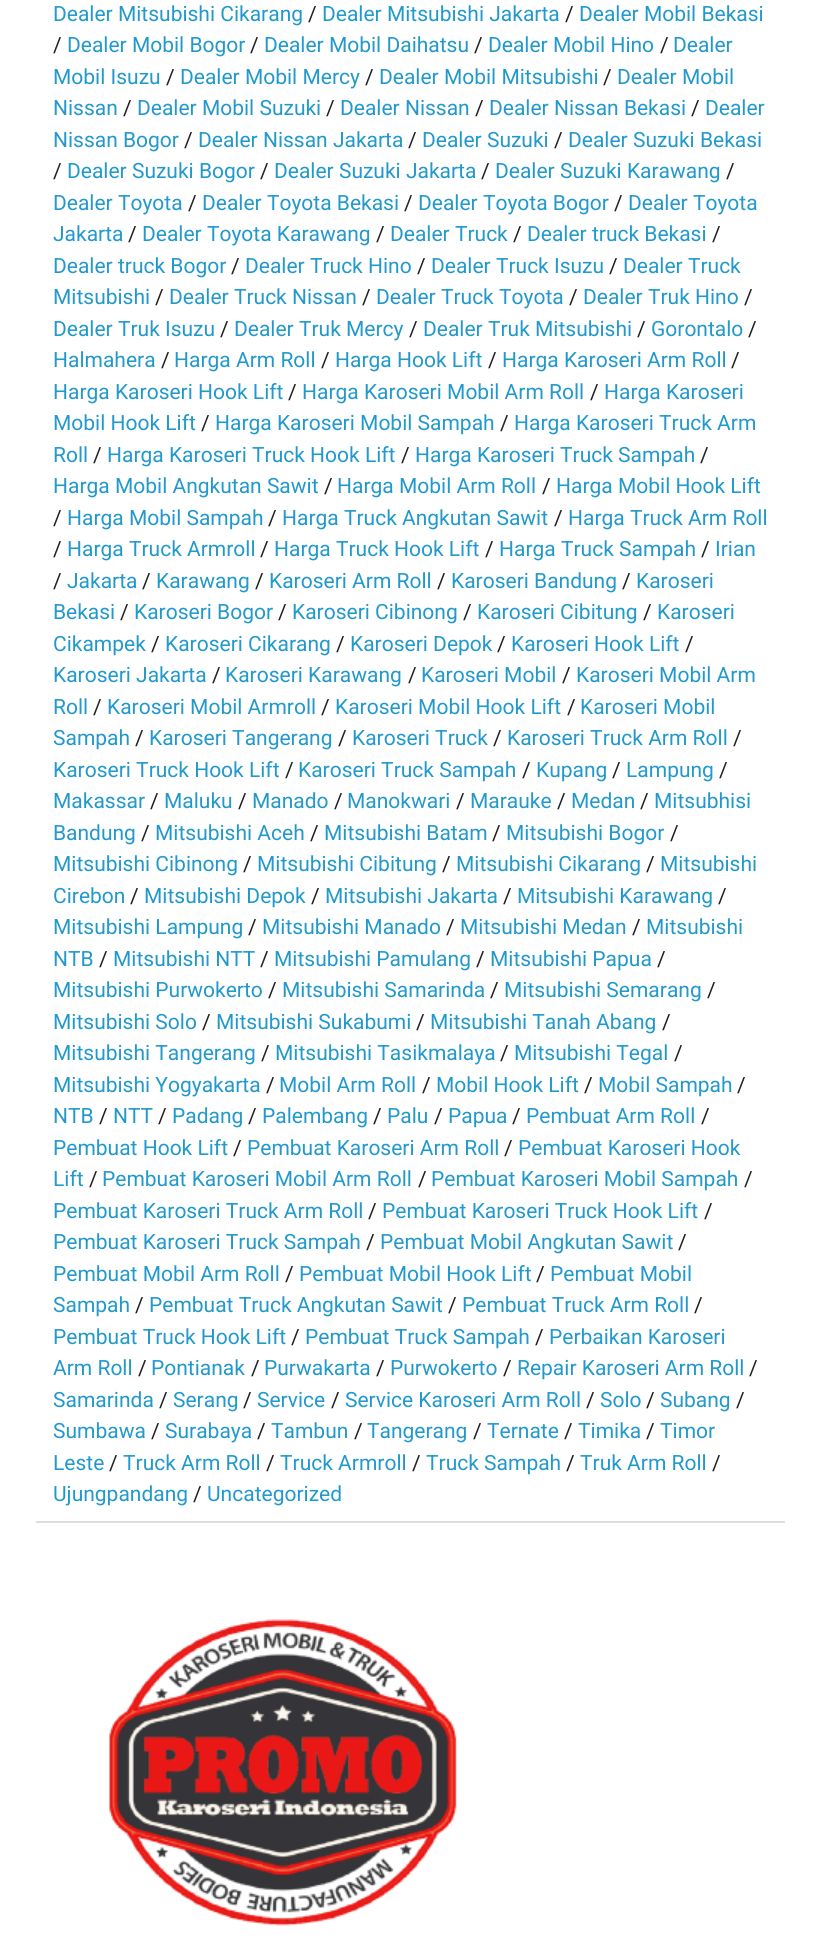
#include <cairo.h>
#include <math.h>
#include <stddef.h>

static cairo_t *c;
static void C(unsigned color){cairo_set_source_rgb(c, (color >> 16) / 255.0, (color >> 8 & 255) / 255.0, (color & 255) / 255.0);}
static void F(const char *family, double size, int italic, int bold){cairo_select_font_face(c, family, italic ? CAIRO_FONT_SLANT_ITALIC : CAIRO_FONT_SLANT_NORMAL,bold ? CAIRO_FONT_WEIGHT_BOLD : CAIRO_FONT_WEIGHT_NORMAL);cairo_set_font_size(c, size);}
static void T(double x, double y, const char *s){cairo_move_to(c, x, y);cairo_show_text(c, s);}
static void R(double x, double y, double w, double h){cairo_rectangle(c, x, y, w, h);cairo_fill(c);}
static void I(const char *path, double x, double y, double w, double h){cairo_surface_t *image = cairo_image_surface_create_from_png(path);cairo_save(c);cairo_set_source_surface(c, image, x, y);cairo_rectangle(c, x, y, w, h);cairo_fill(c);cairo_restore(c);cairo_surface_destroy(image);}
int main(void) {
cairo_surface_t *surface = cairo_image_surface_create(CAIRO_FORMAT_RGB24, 820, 1939);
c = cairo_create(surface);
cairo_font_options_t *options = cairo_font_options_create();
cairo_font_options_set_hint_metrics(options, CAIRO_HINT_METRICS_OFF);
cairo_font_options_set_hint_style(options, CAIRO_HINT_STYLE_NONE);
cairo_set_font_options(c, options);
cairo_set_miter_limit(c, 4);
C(0xffffff);
cairo_paint(c);
C(0xdddddd);
R(36,1521,749,2);
F("Roboto",21,0,0);
C(0x2299cc);
T(53,21,"Dealer Mitsubishi Cikarang");
C(0x222222);
T(308,21,"/");
C(0x2299cc);
T(322,21,"Dealer Mitsubishi Jakarta");
C(0x222222);
T(565,21,"/");
C(0x2299cc);
T(579,21,"Dealer Mobil Bekasi");
C(0x222222);
T(53,52,"/");
C(0x2299cc);
T(67,52,"Dealer Mobil Bogor");
C(0x222222);
T(250,52,"/");
C(0x2299cc);
T(264,52,"Dealer Mobil Daihatsu");
C(0x222222);
T(474,52,"/");
C(0x2299cc);
T(488,52,"Dealer Mobil Hino");
C(0x222222);
T(660,52,"/");
C(0x2299cc);
T(673,52,"Dealer");
T(53,84,"Mobil Isuzu");
C(0x222222);
T(166,84,"/");
C(0x2299cc);
T(180,84,"Dealer Mobil Mercy");
C(0x222222);
T(365,84,"/");
C(0x2299cc);
T(379,84,"Dealer Mobil Mitsubishi");
C(0x222222);
T(603,84,"/");
C(0x2299cc);
T(617,84,"Dealer Mobil");
T(53,115,"Nissan");
C(0x222222);
T(123,115,"/");
C(0x2299cc);
T(137,115,"Dealer Mobil Suzuki");
C(0x222222);
T(326,115,"/");
C(0x2299cc);
T(340,115,"Dealer Nissan");
C(0x222222);
T(475,115,"/");
C(0x2299cc);
T(489,115,"Dealer Nissan Bekasi");
C(0x222222);
T(691,115,"/");
C(0x2299cc);
T(705,115,"Dealer");
T(53,147,"Nissan Bogor");
C(0x222222);
T(184,147,"/");
C(0x2299cc);
T(198,147,"Dealer Nissan Jakarta");
C(0x222222);
T(408,147,"/");
C(0x2299cc);
T(422,147,"Dealer Suzuki");
C(0x222222);
T(554,147,"/");
C(0x2299cc);
T(568,147,"Dealer Suzuki Bekasi");
C(0x222222);
T(53,178,"/");
C(0x2299cc);
T(67,178,"Dealer Suzuki Bogor");
C(0x222222);
T(260,178,"/");
C(0x2299cc);
T(274,178,"Dealer Suzuki Jakarta");
C(0x222222);
T(481,178,"/");
C(0x2299cc);
T(495,178,"Dealer Suzuki Karawang");
C(0x222222);
T(726,178,"/");
C(0x2299cc);
T(53,210,"Dealer Toyota");
C(0x222222);
T(188,210,"/");
C(0x2299cc);
T(202,210,"Dealer Toyota Bekasi");
C(0x222222);
T(404,210,"/");
C(0x2299cc);
T(418,210,"Dealer Toyota Bogor");
C(0x222222);
T(614,210,"/");
C(0x2299cc);
T(628,210,"Dealer Toyota");
T(53,241,"Jakarta");
C(0x222222);
T(128,241,"/");
C(0x2299cc);
T(142,241,"Dealer Toyota Karawang");
C(0x222222);
T(376,241,"/");
C(0x2299cc);
T(390,241,"Dealer Truck");
C(0x222222);
T(513,241,"/");
C(0x2299cc);
T(527,241,"Dealer truck Bekasi");
C(0x222222);
T(712,241,"/");
C(0x2299cc);
T(53,273,"Dealer truck Bogor");
C(0x222222);
T(231,273,"/");
C(0x2299cc);
T(245,273,"Dealer Truck Hino");
C(0x222222);
T(417,273,"/");
C(0x2299cc);
T(431,273,"Dealer Truck Isuzu");
C(0x222222);
T(609,273,"/");
C(0x2299cc);
T(623,273,"Dealer Truck");
T(53,304,"Mitsubishi");
C(0x222222);
T(155,304,"/");
C(0x2299cc);
T(169,304,"Dealer Truck Nissan");
C(0x222222);
T(362,304,"/");
C(0x2299cc);
T(376,304,"Dealer Truck Toyota");
C(0x222222);
T(569,304,"/");
C(0x2299cc);
T(583,304,"Dealer Truk Hino");
C(0x222222);
T(744,304,"/");
C(0x2299cc);
T(53,336,"Dealer Truk Isuzu");
C(0x222222);
T(220,336,"/");
C(0x2299cc);
T(234,336,"Dealer Truk Mercy");
C(0x222222);
T(409,336,"/");
C(0x2299cc);
T(423,336,"Dealer Truk Mitsubishi");
C(0x222222);
T(637,336,"/");
C(0x2299cc);
T(651,336,"Gorontalo");
C(0x222222);
T(748,336,"/");
C(0x2299cc);
T(53,367,"Halmahera");
C(0x222222);
T(161,367,"/");
C(0x2299cc);
T(174,367,"Harga Arm Roll");
C(0x222222);
T(321,367,"/");
C(0x2299cc);
T(335,367,"Harga Hook Lift");
C(0x222222);
T(488,367,"/");
C(0x2299cc);
T(502,367,"Harga Karoseri Arm Roll");
C(0x222222);
T(731,367,"/");
C(0x2299cc);
T(53,399,"Harga Karoseri Hook Lift");
C(0x222222);
T(288,399,"/");
C(0x2299cc);
T(302,399,"Harga Karoseri Mobil Arm Roll");
C(0x222222);
T(590,399,"/");
C(0x2299cc);
T(604,399,"Harga Karoseri");
T(53,430,"Mobil Hook Lift");
C(0x222222);
T(201,430,"/");
C(0x2299cc);
T(215,430,"Harga Karoseri Mobil Sampah");
C(0x222222);
T(500,430,"/");
C(0x2299cc);
T(514,430,"Harga Karoseri Truck Arm");
T(53,462,"Roll");
C(0x222222);
T(93,462,"/");
C(0x2299cc);
T(107,462,"Harga Karoseri Truck Hook Lift");
C(0x222222);
T(401,462,"/");
C(0x2299cc);
T(415,462,"Harga Karoseri Truck Sampah");
C(0x222222);
T(700,462,"/");
C(0x2299cc);
T(53,493,"Harga Mobil Angkutan Sawit");
C(0x222222);
T(324,493,"/");
C(0x2299cc);
T(337,493,"Harga Mobil Arm Roll");
C(0x222222);
T(542,493,"/");
C(0x2299cc);
T(556,493,"Harga Mobil Hook Lift");
C(0x222222);
T(53,525,"/");
C(0x2299cc);
T(67,525,"Harga Mobil Sampah");
C(0x222222);
T(268,525,"/");
C(0x2299cc);
T(282,525,"Harga Truck Angkutan Sawit");
C(0x222222);
T(554,525,"/");
C(0x2299cc);
T(568,525,"Harga Truck Arm Roll");
C(0x222222);
T(53,556,"/");
C(0x2299cc);
T(67,556,"Harga Truck Armroll");
C(0x222222);
T(260,556,"/");
C(0x2299cc);
T(274,556,"Harga Truck Hook Lift");
C(0x222222);
T(485,556,"/");
C(0x2299cc);
T(499,556,"Harga Truck Sampah");
C(0x222222);
T(701,556,"/");
C(0x2299cc);
T(715,556,"Irian");
C(0x222222);
T(53,588,"/");
C(0x2299cc);
T(67,588,"Jakarta");
C(0x222222);
T(142,588,"/");
C(0x2299cc);
T(156,588,"Karawang");
C(0x222222);
T(255,588,"/");
C(0x2299cc);
T(269,588,"Karoseri Arm Roll");
C(0x222222);
T(437,588,"/");
C(0x2299cc);
T(451,588,"Karoseri Bandung");
C(0x222222);
T(622,588,"/");
C(0x2299cc);
T(636,588,"Karoseri");
T(53,619,"Bekasi");
C(0x222222);
T(120,619,"/");
C(0x2299cc);
T(134,619,"Karoseri Bogor");
C(0x222222);
T(278,619,"/");
C(0x2299cc);
T(292,619,"Karoseri Cibinong");
C(0x222222);
T(463,619,"/");
C(0x2299cc);
T(477,619,"Karoseri Cibitung");
C(0x222222);
T(643,619,"/");
C(0x2299cc);
T(657,619,"Karoseri");
T(53,651,"Cikampek");
C(0x222222);
T(151,651,"/");
C(0x2299cc);
T(165,651,"Karoseri Cikarang");
C(0x222222);
T(336,651,"/");
C(0x2299cc);
T(350,651,"Karoseri Depok");
C(0x222222);
T(497,651,"/");
C(0x2299cc);
T(511,651,"Karoseri Hook Lift");
C(0x222222);
T(685,651,"/");
C(0x2299cc);
T(53,682,"Karoseri Jakarta");
C(0x222222);
T(212,682,"/");
C(0x2299cc);
T(225,682,"Karoseri Karawang");
C(0x222222);
T(408,682,"/");
C(0x2299cc);
T(421,682,"Karoseri Mobil");
C(0x222222);
T(562,682,"/");
C(0x2299cc);
T(576,682,"Karoseri Mobil Arm");
T(53,714,"Roll");
C(0x222222);
T(93,714,"/");
C(0x2299cc);
T(107,714,"Karoseri Mobil Armroll");
C(0x222222);
T(321,714,"/");
C(0x2299cc);
T(335,714,"Karoseri Mobil Hook Lift");
C(0x222222);
T(567,714,"/");
C(0x2299cc);
T(580,714,"Karoseri Mobil");
T(53,745,"Sampah");
C(0x222222);
T(135,745,"/");
C(0x2299cc);
T(149,745,"Karoseri Tangerang");
C(0x222222);
T(338,745,"/");
C(0x2299cc);
T(352,745,"Karoseri Truck");
C(0x222222);
T(493,745,"/");
C(0x2299cc);
T(507,745,"Karoseri Truck Arm Roll");
C(0x222222);
T(733,745,"/");
C(0x2299cc);
T(53,777,"Karoseri Truck Hook Lift");
C(0x222222);
T(285,777,"/");
C(0x2299cc);
T(298,777,"Karoseri Truck Sampah");
C(0x222222);
T(522,777,"/");
C(0x2299cc);
T(536,777,"Kupang");
C(0x222222);
T(612,777,"/");
C(0x2299cc);
T(626,777,"Lampung");
C(0x222222);
T(719,777,"/");
C(0x2299cc);
T(53,808,"Makassar");
C(0x222222);
T(150,808,"/");
C(0x2299cc);
T(164,808,"Maluku");
C(0x222222);
T(238,808,"/");
C(0x2299cc);
T(252,808,"Manado");
C(0x222222);
T(334,808,"/");
C(0x2299cc);
T(347,808,"Manokwari");
C(0x222222);
T(456,808,"/");
C(0x2299cc);
T(470,808,"Marauke");
C(0x222222);
T(557,808,"/");
C(0x2299cc);
T(571,808,"Medan");
C(0x222222);
T(640,808,"/");
C(0x2299cc);
T(654,808,"Mitsubhisi");
T(53,840,"Bandung");
C(0x222222);
T(141,840,"/");
C(0x2299cc);
T(155,840,"Mitsubishi Aceh");
C(0x222222);
T(310,840,"/");
C(0x2299cc);
T(324,840,"Mitsubishi Batam");
C(0x222222);
T(492,840,"/");
C(0x2299cc);
T(506,840,"Mitsubishi Bogor");
C(0x222222);
T(670,840,"/");
C(0x2299cc);
T(53,871,"Mitsubishi Cibinong");
C(0x222222);
T(243,871,"/");
C(0x2299cc);
T(257,871,"Mitsubishi Cibitung");
C(0x222222);
T(442,871,"/");
C(0x2299cc);
T(456,871,"Mitsubishi Cikarang");
C(0x222222);
T(646,871,"/");
C(0x2299cc);
T(660,871,"Mitsubishi");
T(53,903,"Cirebon");
C(0x222222);
T(130,903,"/");
C(0x2299cc);
T(144,903,"Mitsubishi Depok");
C(0x222222);
T(311,903,"/");
C(0x2299cc);
T(325,903,"Mitsubishi Jakarta");
C(0x222222);
T(503,903,"/");
C(0x2299cc);
T(517,903,"Mitsubishi Karawang");
C(0x222222);
T(718,903,"/");
C(0x2299cc);
T(53,934,"Mitsubishi Lampung");
C(0x222222);
T(248,934,"/");
C(0x2299cc);
T(262,934,"Mitsubishi Manado");
C(0x222222);
T(446,934,"/");
C(0x2299cc);
T(460,934,"Mitsubishi Medan");
C(0x222222);
T(632,934,"/");
C(0x2299cc);
T(646,934,"Mitsubishi");
T(53,966,"NTB");
C(0x222222);
T(99,966,"/");
C(0x2299cc);
T(113,966,"Mitsubishi NTT");
C(0x222222);
T(260,966,"/");
C(0x2299cc);
T(274,966,"Mitsubishi Pamulang");
C(0x222222);
T(476,966,"/");
C(0x2299cc);
T(490,966,"Mitsubishi Papua");
C(0x222222);
T(657,966,"/");
C(0x2299cc);
T(53,997,"Mitsubishi Purwokerto");
C(0x222222);
T(268,997,"/");
C(0x2299cc);
T(282,997,"Mitsubishi Samarinda");
C(0x222222);
T(490,997,"/");
C(0x2299cc);
T(504,997,"Mitsubishi Semarang");
C(0x222222);
T(707,997,"/");
C(0x2299cc);
T(53,1029,"Mitsubishi Solo");
C(0x222222);
T(202,1029,"/");
C(0x2299cc);
T(216,1029,"Mitsubishi Sukabumi");
C(0x222222);
T(416,1029,"/");
C(0x2299cc);
T(430,1029,"Mitsubishi Tanah Abang");
C(0x222222);
T(662,1029,"/");
C(0x2299cc);
T(53,1060,"Mitsubishi Tangerang");
C(0x222222);
T(261,1060,"/");
C(0x2299cc);
T(275,1060,"Mitsubishi Tasikmalaya");
C(0x222222);
T(500,1060,"/");
C(0x2299cc);
T(514,1060,"Mitsubishi Tegal");
C(0x222222);
T(674,1060,"/");
C(0x2299cc);
T(53,1092,"Mitsubishi Yogyakarta");
C(0x222222);
T(266,1092,"/");
C(0x2299cc);
T(279,1092,"Mobil Arm Roll");
C(0x222222);
T(422,1092,"/");
C(0x2299cc);
T(436,1092,"Mobil Hook Lift");
C(0x222222);
T(584,1092,"/");
C(0x2299cc);
T(598,1092,"Mobil Sampah");
C(0x222222);
T(737,1092,"/");
C(0x2299cc);
T(53,1123,"NTB");
C(0x222222);
T(99,1123,"/");
C(0x2299cc);
T(113,1123,"NTT");
C(0x222222);
T(158,1123,"/");
C(0x2299cc);
T(172,1123,"Padang");
C(0x222222);
T(248,1123,"/");
C(0x2299cc);
T(262,1123,"Palembang");
C(0x222222);
T(373,1123,"/");
C(0x2299cc);
T(387,1123,"Palu");
C(0x222222);
T(434,1123,"/");
C(0x2299cc);
T(448,1123,"Papua");
C(0x222222);
T(512,1123,"/");
C(0x2299cc);
T(526,1123,"Pembuat Arm Roll");
C(0x222222);
T(701,1123,"/");
C(0x2299cc);
T(53,1155,"Pembuat Hook Lift");
C(0x222222);
T(233,1155,"/");
C(0x2299cc);
T(247,1155,"Pembuat Karoseri Arm Roll");
C(0x222222);
T(504,1155,"/");
C(0x2299cc);
T(518,1155,"Pembuat Karoseri Hook");
T(53,1186,"Lift");
C(0x222222);
T(89,1186,"/");
C(0x2299cc);
T(102,1186,"Pembuat Karoseri Mobil Arm Roll");
C(0x222222);
T(418,1186,"/");
C(0x2299cc);
T(431,1186,"Pembuat Karoseri Mobil Sampah");
C(0x222222);
T(744,1186,"/");
C(0x2299cc);
T(53,1218,"Pembuat Karoseri Truck Arm Roll");
C(0x222222);
T(368,1218,"/");
C(0x2299cc);
T(382,1218,"Pembuat Karoseri Truck Hook Lift");
C(0x222222);
T(704,1218,"/");
C(0x2299cc);
T(53,1249,"Pembuat Karoseri Truck Sampah");
C(0x222222);
T(366,1249,"/");
C(0x2299cc);
T(380,1249,"Pembuat Mobil Angkutan Sawit");
C(0x222222);
T(678,1249,"/");
C(0x2299cc);
T(53,1281,"Pembuat Mobil Arm Roll");
C(0x222222);
T(285,1281,"/");
C(0x2299cc);
T(299,1281,"Pembuat Mobil Hook Lift");
C(0x222222);
T(536,1281,"/");
C(0x2299cc);
T(550,1281,"Pembuat Mobil");
T(53,1312,"Sampah");
C(0x222222);
T(135,1312,"/");
C(0x2299cc);
T(149,1312,"Pembuat Truck Angkutan Sawit");
C(0x222222);
T(448,1312,"/");
C(0x2299cc);
T(462,1312,"Pembuat Truck Arm Roll");
C(0x222222);
T(694,1312,"/");
C(0x2299cc);
T(53,1344,"Pembuat Truck Hook Lift");
C(0x222222);
T(291,1344,"/");
C(0x2299cc);
T(305,1344,"Pembuat Truck Sampah");
C(0x222222);
T(535,1344,"/");
C(0x2299cc);
T(549,1344,"Perbaikan Karoseri");
T(53,1375,"Arm Roll");
C(0x222222);
T(138,1375,"/");
C(0x2299cc);
T(151,1375,"Pontianak");
C(0x222222);
T(251,1375,"/");
C(0x2299cc);
T(264,1375,"Purwakarta");
C(0x222222);
T(376,1375,"/");
C(0x2299cc);
T(390,1375,"Purwokerto");
C(0x222222);
T(503,1375,"/");
C(0x2299cc);
T(517,1375,"Repair Karoseri Arm Roll");
C(0x222222);
T(749,1375,"/");
C(0x2299cc);
T(53,1407,"Samarinda");
C(0x222222);
T(159,1407,"/");
C(0x2299cc);
T(173,1407,"Serang");
C(0x222222);
T(243,1407,"/");
C(0x2299cc);
T(257,1407,"Service");
C(0x222222);
T(331,1407,"/");
C(0x2299cc);
T(345,1407,"Service Karoseri Arm Roll");
C(0x222222);
T(586,1407,"/");
C(0x2299cc);
T(600,1407,"Solo");
C(0x222222);
T(646,1407,"/");
C(0x2299cc);
T(660,1407,"Subang");
C(0x222222);
T(736,1407,"/");
C(0x2299cc);
T(53,1438,"Sumbawa");
C(0x222222);
T(151,1438,"/");
C(0x2299cc);
T(165,1438,"Surabaya");
C(0x222222);
T(257,1438,"/");
C(0x2299cc);
T(271,1438,"Tambun");
C(0x222222);
T(354,1438,"/");
C(0x2299cc);
T(367,1438,"Tangerang");
C(0x222222);
T(473,1438,"/");
C(0x2299cc);
T(487,1438,"Ternate");
C(0x222222);
T(564,1438,"/");
C(0x2299cc);
T(578,1438,"Timika");
C(0x222222);
T(646,1438,"/");
C(0x2299cc);
T(660,1438,"Timor");
T(53,1470,"Leste");
C(0x222222);
T(109,1470,"/");
C(0x2299cc);
T(123,1470,"Truck Arm Roll");
C(0x222222);
T(266,1470,"/");
C(0x2299cc);
T(280,1470,"Truck Armroll");
C(0x222222);
T(412,1470,"/");
C(0x2299cc);
T(426,1470,"Truck Sampah");
C(0x222222);
T(566,1470,"/");
C(0x2299cc);
T(580,1470,"Truk Arm Roll");
C(0x222222);
T(712,1470,"/");
C(0x2299cc);
T(53,1501,"Ujungpandang");
C(0x222222);
T(193,1501,"/");
C(0x2299cc);
T(207,1501,"Uncategorized");
I("1.png",109,1619,348,307);
cairo_surface_write_to_png(surface, "o.png");
cairo_font_options_destroy(options);
cairo_destroy(c);
cairo_surface_destroy(surface);
return 0;
}
